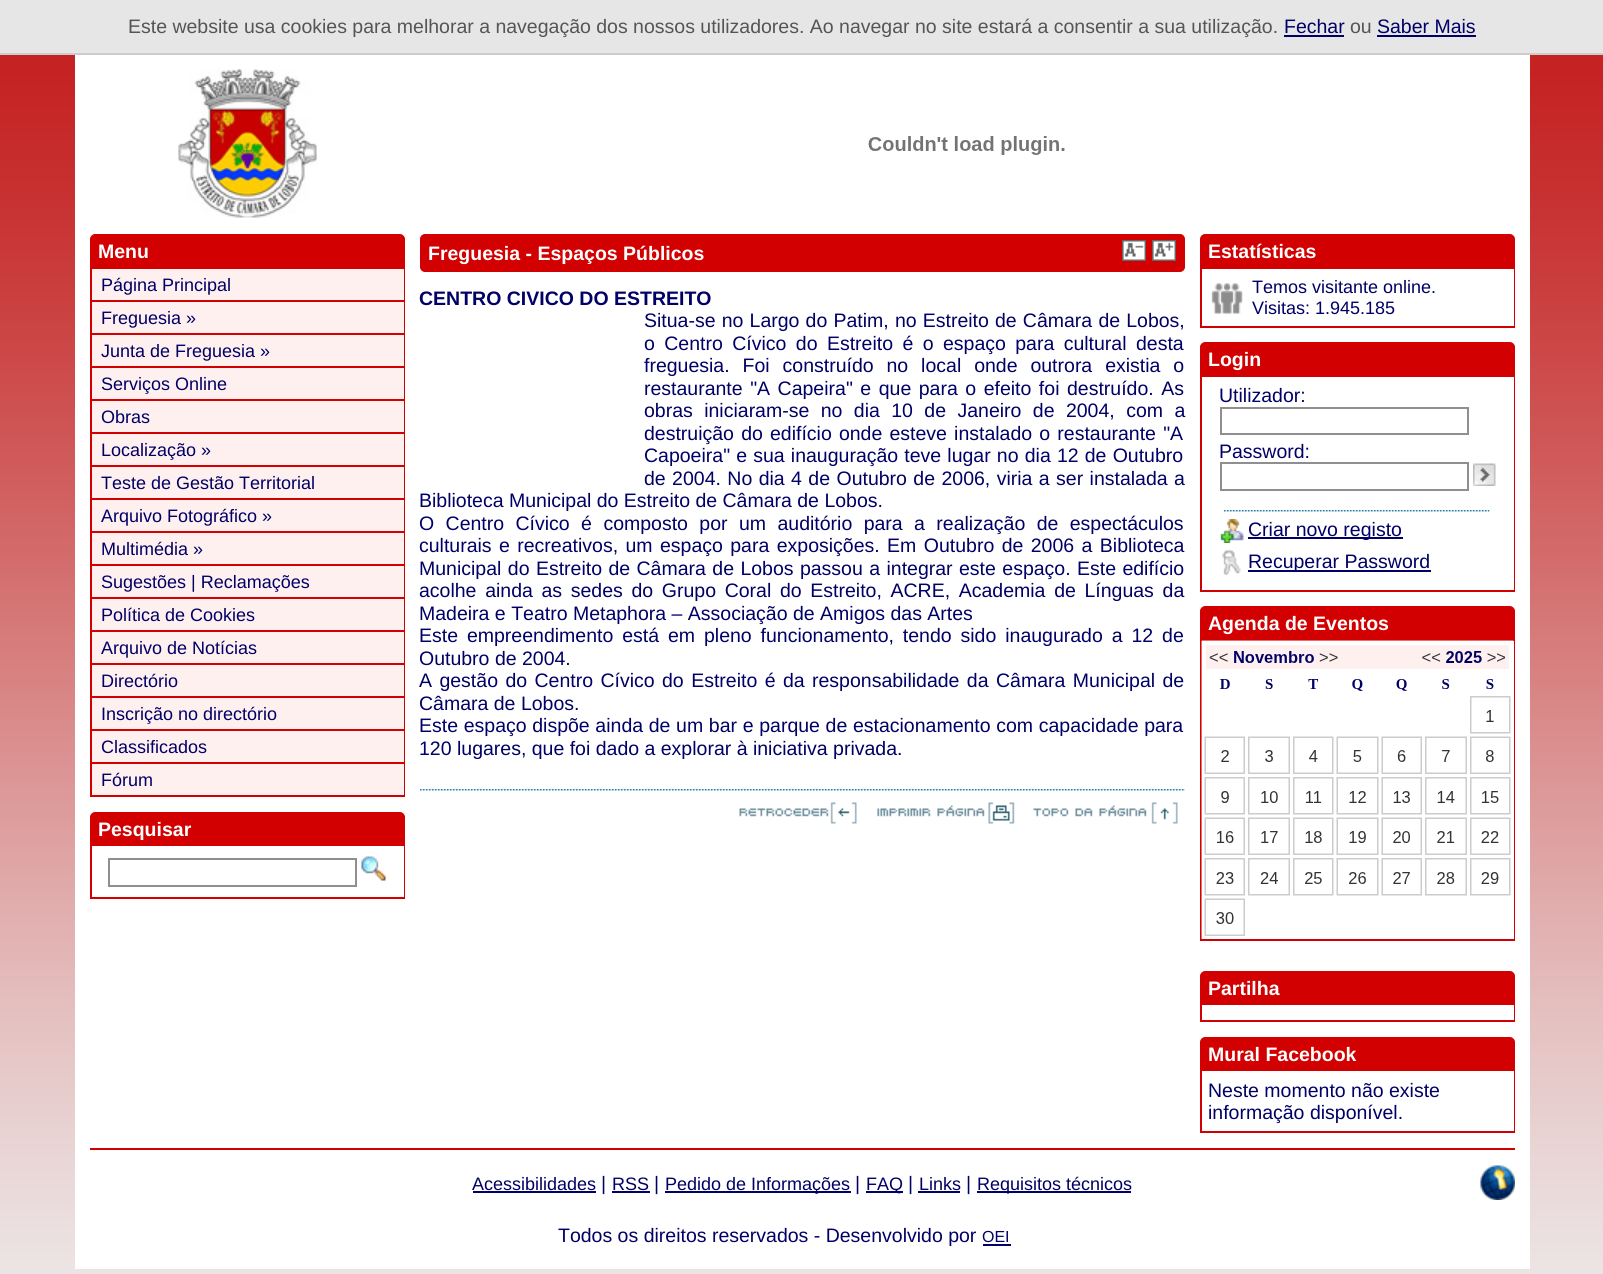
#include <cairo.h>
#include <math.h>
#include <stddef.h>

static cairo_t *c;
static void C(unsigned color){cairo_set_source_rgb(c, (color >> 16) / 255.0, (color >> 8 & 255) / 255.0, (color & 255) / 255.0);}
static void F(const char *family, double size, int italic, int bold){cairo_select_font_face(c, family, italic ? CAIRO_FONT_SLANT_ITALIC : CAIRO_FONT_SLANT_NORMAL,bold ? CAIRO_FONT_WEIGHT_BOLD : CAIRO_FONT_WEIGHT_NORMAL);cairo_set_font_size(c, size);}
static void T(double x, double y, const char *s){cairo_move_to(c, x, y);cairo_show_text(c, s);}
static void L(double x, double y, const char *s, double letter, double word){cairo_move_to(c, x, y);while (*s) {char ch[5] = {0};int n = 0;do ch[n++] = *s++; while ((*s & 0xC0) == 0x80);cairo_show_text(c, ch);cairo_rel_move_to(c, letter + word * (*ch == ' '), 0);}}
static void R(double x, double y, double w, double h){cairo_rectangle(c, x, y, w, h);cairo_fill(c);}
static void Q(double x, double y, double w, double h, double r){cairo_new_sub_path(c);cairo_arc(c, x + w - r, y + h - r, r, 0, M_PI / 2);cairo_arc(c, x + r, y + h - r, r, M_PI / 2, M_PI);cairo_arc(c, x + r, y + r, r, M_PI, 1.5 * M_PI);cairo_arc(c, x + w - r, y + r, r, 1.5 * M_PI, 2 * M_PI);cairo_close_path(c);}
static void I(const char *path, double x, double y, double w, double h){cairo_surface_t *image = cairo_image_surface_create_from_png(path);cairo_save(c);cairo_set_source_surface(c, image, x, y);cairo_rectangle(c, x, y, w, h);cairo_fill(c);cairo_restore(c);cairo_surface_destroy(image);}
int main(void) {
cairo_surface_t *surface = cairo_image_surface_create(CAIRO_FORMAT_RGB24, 1603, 1274);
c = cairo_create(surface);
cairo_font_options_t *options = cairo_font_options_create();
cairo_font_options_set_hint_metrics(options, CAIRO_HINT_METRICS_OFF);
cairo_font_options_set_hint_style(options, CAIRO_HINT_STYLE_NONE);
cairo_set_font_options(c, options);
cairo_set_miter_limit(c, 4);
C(0xffffff);
cairo_paint(c);
I("1.png",0,55,1603,1219);
C(0xe6e6e6);
R(0,0,1603,53);
C(0xcccccc);
R(0,53,1603,2);
F("Liberation Sans",19.5,0,0);
C(0x555555);
T(128,33,"Este website usa cookies para melhorar a navegação dos nossos utilizadores. Ao navegar no site estará a consentir a sua utilização.");
C(0x000066);
T(1284,33,"Fechar");
R(1284,35,60,2);
C(0x555555);
T(1350,33,"ou");
C(0x000066);
T(1377,33,"Saber Mais");
R(1377,35,99,2);
C(0xffffff);
R(75,55,1455,1214);
I("2.png",178,69,140,149);
I("3.png",868,136,197,19);
C(0xd20001);
cairo_new_path(c);
cairo_move_to(c,95,235);
cairo_line_to(c,400,235);
cairo_curve_to(c,402,235,404,237,404,239);
cairo_line_to(c,404,268);
cairo_line_to(c,91,268);
cairo_line_to(c,91,239);
cairo_curve_to(c,91,237,93,235,95,235);
cairo_close_path(c);
cairo_fill_preserve(c);
cairo_stroke(c);
F("Liberation Sans",19.5,0,1);
C(0xffffff);
T(98,258,"Menu");
C(0xd20001);
R(404,269,1,528);
R(90,269,2,528);
C(0xfff0f0);
R(92,269,312,526);
C(0xd20001);
R(92,300,312,2);
F("Liberation Sans",18,0,0);
C(0x000066);
T(101,291,"Página Principal");
C(0xd20001);
R(92,333,312,2);
C(0x000066);
T(101,324,"Freguesia »");
C(0xd20001);
R(92,366,312,2);
C(0x000066);
T(101,357,"Junta de Freguesia »");
C(0xd20001);
R(92,399,312,2);
C(0x000066);
T(101,390,"Serviços Online");
C(0xd20001);
R(92,432,312,2);
C(0x000066);
T(101,423,"Obras");
C(0xd20001);
R(92,465,312,2);
C(0x000066);
T(101,456,"Localização »");
C(0xd20001);
R(92,498,312,2);
C(0x000066);
T(101,489,"Teste de Gestão Territorial");
C(0xd20001);
R(92,531,312,2);
C(0x000066);
T(101,522,"Arquivo Fotográfico »");
C(0xd20001);
R(92,564,312,2);
C(0x000066);
T(101,555,"Multimédia »");
C(0xd20001);
R(92,597,312,2);
C(0x000066);
T(101,588,"Sugestões | Reclamações");
C(0xd20001);
R(92,630,312,2);
C(0x000066);
T(101,621,"Política de Cookies");
C(0xd20001);
R(92,663,312,2);
C(0x000066);
T(101,654,"Arquivo de Notícias");
C(0xd20001);
R(92,696,312,2);
C(0x000066);
T(101,687,"Directório");
C(0xd20001);
R(92,729,312,2);
C(0x000066);
T(101,720,"Inscrição no directório");
C(0xd20001);
R(92,762,312,2);
C(0x000066);
T(101,753,"Classificados");
C(0xd20001);
R(92,795,312,2);
C(0x000066);
T(101,786,"Fórum");
C(0xd20001);
cairo_new_path(c);
cairo_move_to(c,95,813);
cairo_line_to(c,400,813);
cairo_curve_to(c,402,813,404,815,404,817);
cairo_line_to(c,404,845);
cairo_line_to(c,91,845);
cairo_line_to(c,91,817);
cairo_curve_to(c,91,815,93,813,95,813);
cairo_close_path(c);
cairo_fill_preserve(c);
cairo_stroke(c);
F("Liberation Sans",19.5,0,1);
C(0xffffff);
T(98,836,"Pesquisar");
C(0xd20001);
R(404,846,1,53);
R(90,897,315,2);
R(90,846,2,53);
cairo_rectangle(c,109,859,247,27);
C(0x8f8f8f);
cairo_stroke(c);
I("4.png",361,856,25,25);
C(0xd20001);
Q(421,235,763,36,4);
cairo_fill_preserve(c);
cairo_stroke(c);
C(0xffffff);
T(428,260,"Freguesia - Espaços Públicos");
I("5.png",1122,240,24,21);
I("6.png",1152,240,24,21);
C(0x000066);
T(419,305,"CENTRO CIVICO DO ESTREITO");
F("Liberation Sans",19.5,0,0);
L(644,327,"Situa-se no Largo do Patim, no Estreito de Câmara de Lobos,",0,.75);
L(644,350,"o Centro Cívico do Estreito é o espaço para cultural desta",0,4);
L(644,372,"freguesia. Foi construído no local onde outrora existia o",0,7.5);
L(644,395,"restaurante \"A Capeira\" e que para o efeito foi destruído. As",0,2.1);
L(644,417,"obras iniciaram-se no dia 10 de Janeiro de 2004, com a",0,6);
L(644,440,"destruição do edifício onde esteve instalado o restaurante \"A",0,1.75);
L(644,462,"Capoeira\" e sua inauguração teve lugar no dia 12 de Outubro",0,.75);
L(644,485,"de 2004. No dia 4 de Outubro de 2006, viria a ser instalada a",0,1);
T(419,507,"Biblioteca Municipal do Estreito de Câmara de Lobos.");
L(419,530,"O Centro Cívico é composto por um auditório para a realização de espectáculos",0,6);
L(419,552,"culturais e recreativos, um espaço para exposições. Em Outubro de 2006 a Biblioteca",0,2);
L(419,575,"Municipal do Estreito de Câmara de Lobos passou a integrar este espaço. Este edifício",0,1);
L(419,597,"acolhe ainda as sedes do Grupo Coral do Estreito, ACRE, Academia de Línguas da",0,3.25);
T(419,620,"Madeira e Teatro Metaphora – Associação de Amigos das Artes");
L(419,642,"Este empreendimento está em pleno funcionamento, tendo sido inaugurado a 12 de",0,3.5);
T(419,665,"Outubro de 2004.");
L(419,687,"A gestão do Centro Cívico do Estreito é da responsabilidade da Câmara Municipal de",0,2);
T(419,710,"Câmara de Lobos.");
L(419,732,"Este espaço dispõe ainda de um bar e parque de estacionamento com capacidade para",0,.25);
cairo_save(c);
cairo_rectangle(c,420,287,765,472);
cairo_clip(c);
T(419,755,"120 lugares, que foi dado a explorar à iniciativa privada.");
cairo_restore(c);
I("7.png",420,789,765,2);
I("8.png",739,802,118,22);
I("9.png",877,802,138,22);
I("10.png",1033,802,145,22);
C(0xd20001);
cairo_new_path(c);
cairo_move_to(c,1205,235);
cairo_line_to(c,1510,235);
cairo_curve_to(c,1512,235,1514,237,1514,239);
cairo_line_to(c,1514,268);
cairo_line_to(c,1201,268);
cairo_line_to(c,1201,239);
cairo_curve_to(c,1201,237,1203,235,1205,235);
cairo_close_path(c);
cairo_fill_preserve(c);
cairo_stroke(c);
F("Liberation Sans",19.5,0,1);
C(0xffffff);
T(1208,258,"Estatísticas");
C(0xd20001);
R(1514,269,1,58);
R(1200,326,315,2);
R(1200,269,2,58);
I("11.png",1211,283,32,31);
F("Liberation Sans",18,0,0);
C(0x000066);
T(1252,293,"Temos visitante online.");
T(1252,314,"Visitas: 1.945.185");
C(0xd20001);
cairo_new_path(c);
cairo_move_to(c,1205,343);
cairo_line_to(c,1510,343);
cairo_curve_to(c,1512,343,1514,345,1514,347);
cairo_line_to(c,1514,376);
cairo_line_to(c,1201,376);
cairo_line_to(c,1201,347);
cairo_curve_to(c,1201,345,1203,343,1205,343);
cairo_close_path(c);
cairo_fill_preserve(c);
cairo_stroke(c);
F("Liberation Sans",19.5,0,1);
C(0xffffff);
T(1208,366,"Login");
C(0xd20001);
R(1514,377,1,214);
R(1200,590,315,2);
R(1200,377,2,214);
F("Liberation Sans",19.5,0,0);
C(0x000066);
T(1219,402,"Utilizador:");
cairo_rectangle(c,1221,408,247,26);
C(0x8f8f8f);
cairo_stroke(c);
C(0x000066);
T(1219,458,"Password:");
cairo_rectangle(c,1221,463,247,27);
C(0x8f8f8f);
cairo_stroke(c);
I("12.png",1473,463,23,23);
I("13.png",1224,510,266,2);
I("14.png",1220,519,24,24);
C(0x000066);
R(1248,537,155,2);
T(1248,536,"Criar novo registo");
I("15.png",1222,550,19,25);
R(1248,570,183,2);
T(1248,568,"Recuperar Password");
C(0xd20001);
cairo_new_path(c);
cairo_move_to(c,1205,607);
cairo_line_to(c,1510,607);
cairo_curve_to(c,1512,607,1514,609,1514,611);
cairo_line_to(c,1514,640);
cairo_line_to(c,1201,640);
cairo_line_to(c,1201,611);
cairo_curve_to(c,1201,609,1203,607,1205,607);
cairo_close_path(c);
cairo_fill_preserve(c);
cairo_stroke(c);
F("Liberation Sans",19.5,0,1);
C(0xffffff);
T(1208,630,"Agenda de Eventos");
C(0xd20001);
R(1514,641,1,300);
R(1200,939,315,2);
R(1200,641,2,300);
I("16.png",1201,640,313,299);
cairo_new_path(c);
cairo_move_to(c,1205,972);
cairo_line_to(c,1510,972);
cairo_curve_to(c,1512,972,1514,974,1514,976);
cairo_line_to(c,1514,1004);
cairo_line_to(c,1201,1004);
cairo_line_to(c,1201,976);
cairo_curve_to(c,1201,974,1203,972,1205,972);
cairo_close_path(c);
cairo_fill_preserve(c);
cairo_stroke(c);
C(0xffffff);
T(1208,995,"Partilha");
C(0xd20001);
R(1514,1005,1,17);
R(1200,1020,315,2);
R(1200,1005,2,17);
cairo_new_path(c);
cairo_move_to(c,1205,1038);
cairo_line_to(c,1510,1038);
cairo_curve_to(c,1512,1038,1514,1040,1514,1042);
cairo_line_to(c,1514,1070);
cairo_line_to(c,1201,1070);
cairo_line_to(c,1201,1042);
cairo_curve_to(c,1201,1040,1203,1038,1205,1038);
cairo_close_path(c);
cairo_fill_preserve(c);
cairo_stroke(c);
C(0xffffff);
T(1208,1061,"Mural Facebook");
C(0xd20001);
R(1514,1071,1,62);
R(1200,1131,315,2);
R(1200,1071,2,62);
F("Liberation Sans",19.5,0,0);
C(0x000066);
T(1208,1097,"Neste momento não existe");
T(1208,1119,"informação disponível.");
C(0xd20001);
R(90,1148,1425,2);
F("Liberation Sans",18,0,0);
C(0x000066);
T(472,1190,"Acessibilidades");
R(473,1191,123,2);
F("Liberation Sans",19.5,0,0);
T(601,1190,"|");
F("Liberation Sans",18,0,0);
T(612,1190,"RSS");
R(612,1191,38,2);
F("Liberation Sans",19.5,0,0);
T(654,1190,"|");
R(665,1191,186,2);
F("Liberation Sans",18,0,0);
T(665,1190,"Pedido de Informações");
F("Liberation Sans",19.5,0,0);
T(855,1190,"|");
R(866,1191,37,2);
F("Liberation Sans",18,0,0);
T(866,1190,"FAQ");
F("Liberation Sans",19.5,0,0);
T(908,1190,"|");
F("Liberation Sans",18,0,0);
T(919,1190,"Links");
R(918,1191,42,2);
F("Liberation Sans",19.5,0,0);
T(966,1190,"|");
R(977,1191,154,2);
F("Liberation Sans",18,0,0);
T(977,1190,"Requisitos técnicos");
I("17.png",1480,1165,35,35);
F("Liberation Sans",19.5,0,0);
T(558,1242,"Todos os direitos reservados - Desenvolvido por");
F("Liberation Sans",16,0,0);
T(982,1242,"OEI");
R(983,1244,28,2);
cairo_surface_write_to_png(surface, "o.png");
cairo_font_options_destroy(options);
cairo_destroy(c);
cairo_surface_destroy(surface);
return 0;
}
